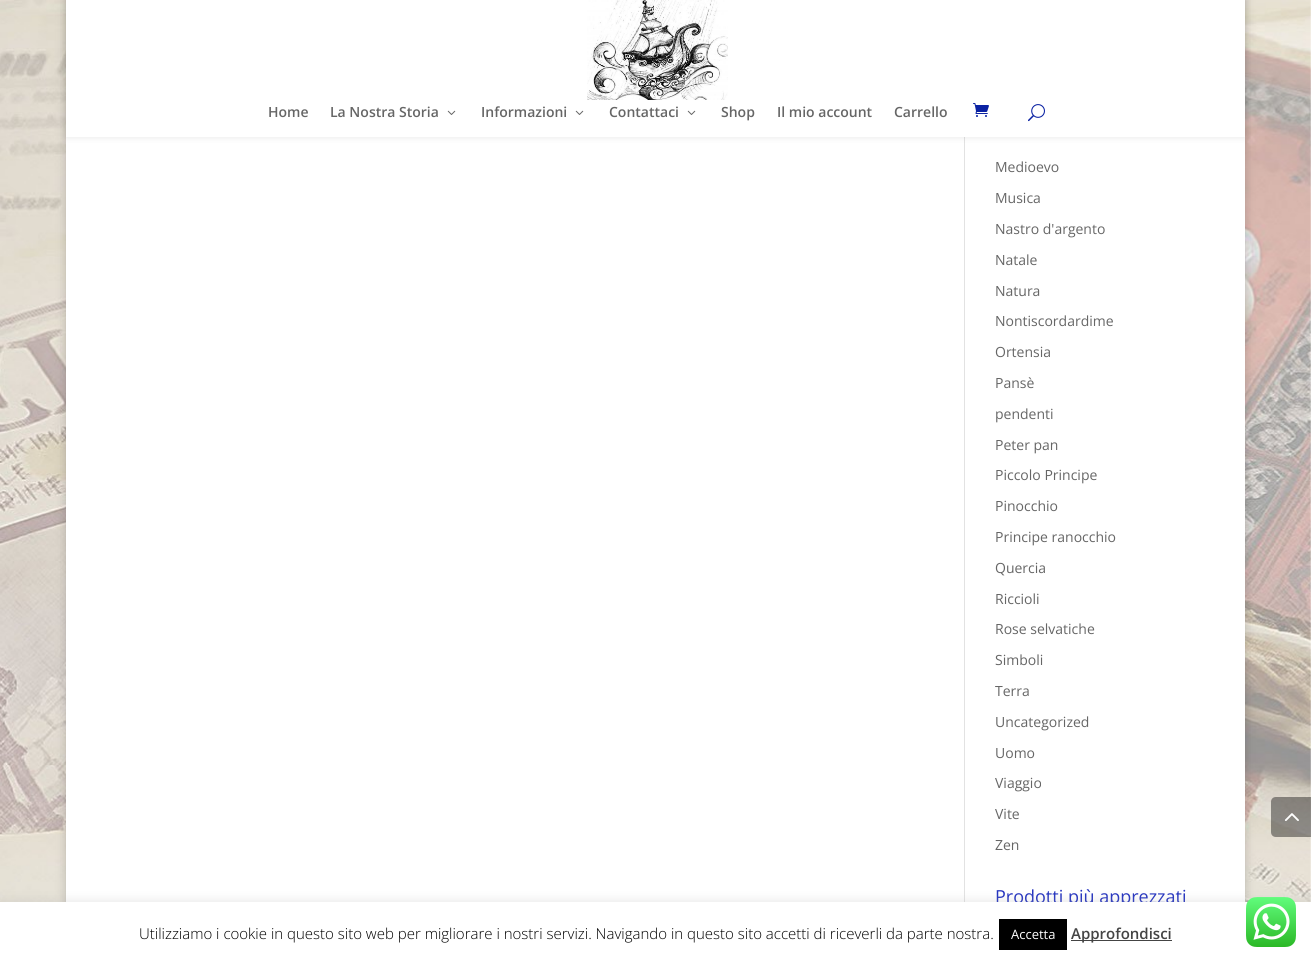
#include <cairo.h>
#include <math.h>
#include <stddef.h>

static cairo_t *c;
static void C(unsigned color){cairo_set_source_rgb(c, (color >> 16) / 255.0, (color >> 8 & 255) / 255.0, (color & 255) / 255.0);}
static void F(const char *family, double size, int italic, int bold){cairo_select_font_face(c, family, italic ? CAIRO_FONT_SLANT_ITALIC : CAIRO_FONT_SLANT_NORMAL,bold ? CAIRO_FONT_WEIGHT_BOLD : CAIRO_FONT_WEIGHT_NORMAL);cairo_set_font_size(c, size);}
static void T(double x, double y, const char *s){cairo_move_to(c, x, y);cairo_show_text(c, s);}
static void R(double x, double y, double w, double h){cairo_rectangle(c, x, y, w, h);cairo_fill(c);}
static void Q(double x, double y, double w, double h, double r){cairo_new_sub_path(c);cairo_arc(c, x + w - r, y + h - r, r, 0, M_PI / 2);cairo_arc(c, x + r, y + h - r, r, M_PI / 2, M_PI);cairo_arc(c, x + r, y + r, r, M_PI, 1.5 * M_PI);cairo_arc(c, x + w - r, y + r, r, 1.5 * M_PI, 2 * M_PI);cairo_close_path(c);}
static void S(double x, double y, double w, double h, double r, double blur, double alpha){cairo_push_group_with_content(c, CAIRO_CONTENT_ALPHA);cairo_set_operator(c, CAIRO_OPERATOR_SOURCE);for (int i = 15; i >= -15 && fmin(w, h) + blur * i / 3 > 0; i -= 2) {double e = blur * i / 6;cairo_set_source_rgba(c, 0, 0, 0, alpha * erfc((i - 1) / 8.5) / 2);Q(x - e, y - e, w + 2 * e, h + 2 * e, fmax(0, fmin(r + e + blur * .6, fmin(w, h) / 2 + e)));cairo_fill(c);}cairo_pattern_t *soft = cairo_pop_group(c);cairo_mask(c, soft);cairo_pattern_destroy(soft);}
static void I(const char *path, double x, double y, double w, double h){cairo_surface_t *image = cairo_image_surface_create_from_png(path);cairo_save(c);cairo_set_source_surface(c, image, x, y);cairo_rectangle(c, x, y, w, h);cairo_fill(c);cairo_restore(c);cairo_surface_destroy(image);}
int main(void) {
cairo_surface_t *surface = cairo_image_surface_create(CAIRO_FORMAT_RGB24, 1311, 962);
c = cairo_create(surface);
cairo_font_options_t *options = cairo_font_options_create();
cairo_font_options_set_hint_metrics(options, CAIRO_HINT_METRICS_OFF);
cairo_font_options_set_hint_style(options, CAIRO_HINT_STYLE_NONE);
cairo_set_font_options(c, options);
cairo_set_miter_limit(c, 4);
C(0xffffff);
cairo_paint(c);
I("1.png",0,0,1311,902);
C(0x000000);
S(66,-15,1179,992,0,5,.2);
C(0xffffff);
R(66,137,1179,765);
C(0xe2e2e2);
R(964,137,1,765);
C(0x000000);
S(66,0,1179,137,0,3.5,.1);
C(0xffffff);
R(66,0,1179,137);
I("2.png",587,0,141,100);
F("Open Sans SemiBold",14,0,0);
C(0x666666);
T(268,117,"Home");
T(330,117,"La Nostra Storia");
I("3.png",447,110,9,5);
T(481,117,"Informazioni");
I("3.png",575,110,9,5);
T(609,117,"Contattaci");
I("3.png",687,110,9,5);
T(721,117,"Shop");
T(777,117,"Il mio account");
T(894,117,"Carrello");
I("4.png",973,103,16,14);
I("5.png",1028,104,17,18);
F("Open Sans",14,0,0);
T(995,172,"Medioevo");
T(995,203,"Musica");
T(995,234,"Nastro d'argento");
T(995,265,"Natale");
T(995,296,"Natura");
T(995,326,"Nontiscordardime");
T(995,357,"Ortensia");
T(995,388,"Pansè");
T(995,419,"pendenti");
T(995,450,"Peter pan");
T(995,480,"Piccolo Principe");
T(995,511,"Pinocchio");
T(995,542,"Principe ranocchio");
T(995,573,"Quercia");
T(995,604,"Riccioli");
T(995,634,"Rose selvatiche");
T(995,665,"Simboli");
T(995,696,"Terra");
T(995,727,"Uncategorized");
T(995,758,"Uomo");
T(995,788,"Viaggio");
T(995,819,"Vite");
T(995,850,"Zen");
F("Open Sans",18,0,0);
C(0x2433bf);
T(995,903,"Prodotti più apprezzati");
cairo_set_source_rgba(c,0,0,0,0.4);
cairo_new_path(c);
cairo_move_to(c,1276,797);
cairo_line_to(c,1311,797);
cairo_line_to(c,1311,837);
cairo_line_to(c,1276,837);
cairo_curve_to(c,1273,837,1271,835,1271,832);
cairo_line_to(c,1271,802);
cairo_curve_to(c,1271,799,1273,797,1276,797);
cairo_close_path(c);
cairo_fill(c);
I("6.png",1284,813,15,8);
C(0xacabab);
S(0,901,1311,60,0,5,.3);
C(0xffffff);
R(0,902,1311,60);
F("Open Sans Light",15,0,0);
C(0x000000);
T(139,939,"Utilizziamo i cookie in questo sito web per migliorare i nostri servizi. Navigando in questo sito accetti di riceverli da parte nostra.");
R(999,919,68,31);
F("Open Sans",13,0,0);
C(0xffffff);
T(1011,939,"Accetta");
C(0x444444);
R(1071,940,101,1);
F("Open Sans SemiBold",15,0,0);
T(1071,939,"Approfondisci");
I("7.png",1246,897,50,50);
cairo_surface_write_to_png(surface, "o.png");
cairo_font_options_destroy(options);
cairo_destroy(c);
cairo_surface_destroy(surface);
return 0;
}
